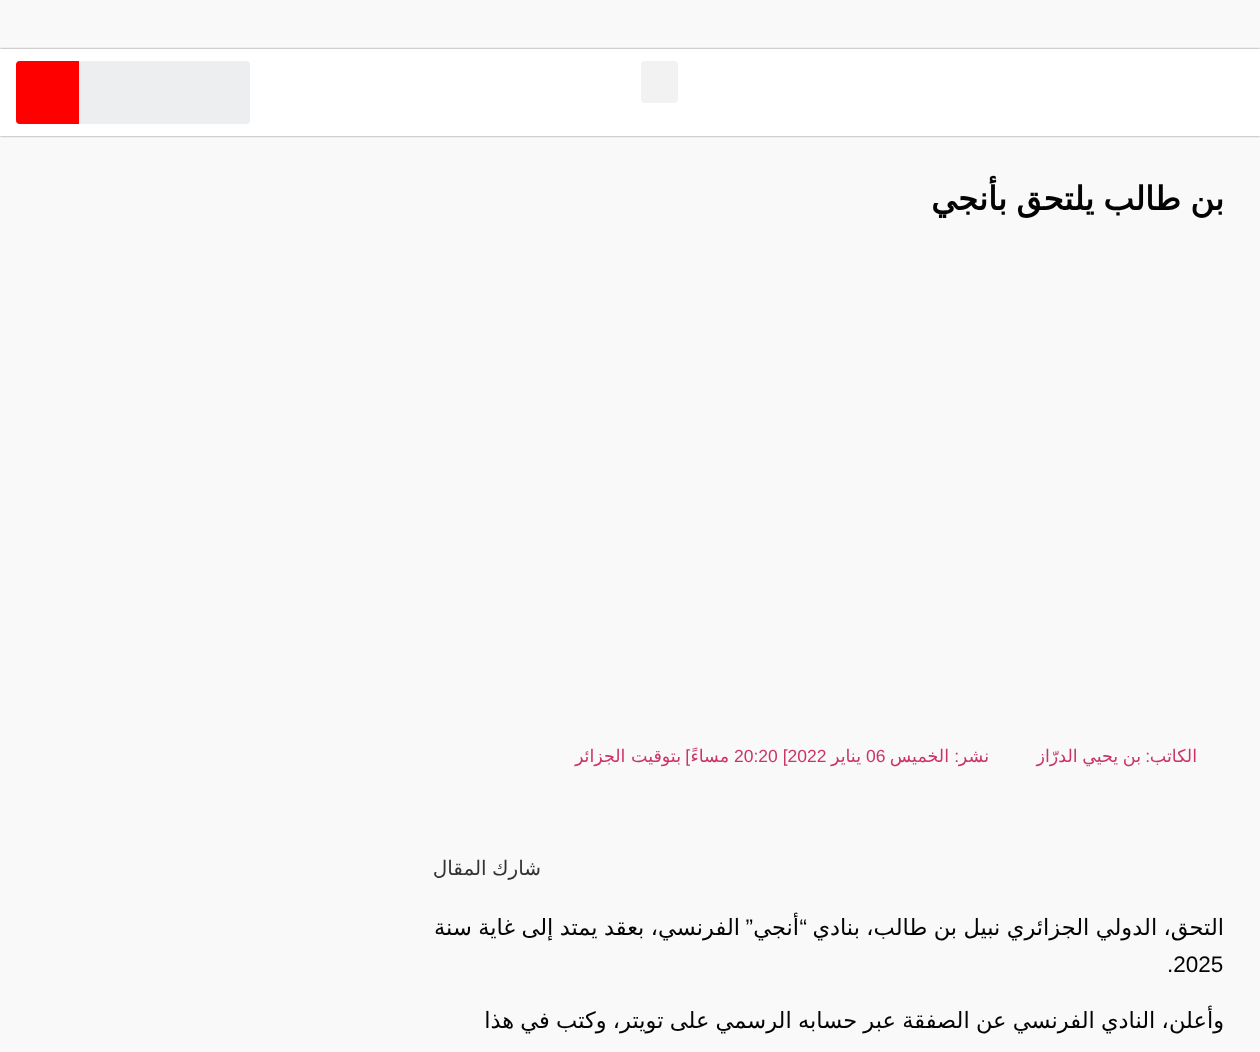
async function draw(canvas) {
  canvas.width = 1260;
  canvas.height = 1052;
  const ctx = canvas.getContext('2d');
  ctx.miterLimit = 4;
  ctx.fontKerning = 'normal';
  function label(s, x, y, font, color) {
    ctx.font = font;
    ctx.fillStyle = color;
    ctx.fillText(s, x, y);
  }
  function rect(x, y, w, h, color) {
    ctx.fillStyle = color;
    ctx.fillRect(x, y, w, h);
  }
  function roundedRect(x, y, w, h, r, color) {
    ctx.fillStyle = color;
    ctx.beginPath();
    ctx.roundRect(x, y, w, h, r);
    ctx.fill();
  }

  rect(0, 0, 1260, 1052, '#f9f9f9');
  ctx.fillStyle = '#00000080';
  ctx.filter = 'blur(1px)';
  ctx.beginPath();
  ctx.rect(0, 49, 1260, 87);
  ctx.fill();
  ctx.filter = 'none';
  rect(0, 49, 1260, 87, '#fff');
  roundedRect(641, 61, 37, 42, 4, '#f2f2f2');
  roundedRect(16, 61, 234, 63, 4, '#eceeef');
  ctx.fillStyle = '#f00';
  ctx.beginPath();
  ctx.roundRect(16, 61, 63, 63, [4, 0, 0, 4]);
  ctx.fill();
  ctx.wordSpacing = '-1px';
  ctx.direction = 'rtl';
  label('بن طالب يلتحق بأنجي', 1224, 210, 'bold 32.5px DejaVu Sans', '#030303');
  ctx.wordSpacing = '0px';
  label('الكاتب', 1197, 762, '17.5px DejaVu Sans', '#c36');
  label(':', 1150, 762, '17.5px Liberation Sans', '#c36');
  ctx.wordSpacing = '-1px';
  label('بن يحيي الدرّاز', 1141, 762, '17.5px DejaVu Sans', '#c36');
  ctx.wordSpacing = '0px';
  label('نشر', 989, 762, '17.5px DejaVu Sans', '#c36');
  label(':', 959, 762, '17.5px Liberation Sans', '#c36');
  label('الخميس', 949, 762, '17.5px DejaVu Sans', '#c36');
  ctx.direction = 'ltr';
  label('06', 866, 762, '17.5px Liberation Sans', '#c36');
  ctx.direction = 'rtl';
  label('يناير', 861, 762, '17.5px DejaVu Sans', '#c36');
  ctx.direction = 'ltr';
  label('20:20 [2022', 734, 762, '17.5px Liberation Sans', '#c36');
  ctx.direction = 'rtl';
  label('مساءً', 729, 762, '17.5px DejaVu Sans', '#c36');
  label(']', 690, 762, '17.5px Liberation Sans', '#c36');
  label('بتوقيت الجزائر', 681, 762, '17.5px DejaVu Sans', '#c36');
  ctx.wordSpacing = '-1px';
  label('شارك المقال', 541, 875, '20px DejaVu Sans', '#333');
  ctx.wordSpacing = '-0.75px';
  label('التحق، الدولي الجزائري نبيل بن طالب، بنادي', 1224, 935, '22.5px DejaVu Sans', '#030303');
  ctx.wordSpacing = '0px';
  label('“', 807, 935, '22.5px Liberation Sans', '#030303');
  label('أنجي', 799, 935, '22.5px DejaVu Sans', '#030303');
  label('”', 753, 935, '22.5px Liberation Sans', '#030303');
  ctx.wordSpacing = '-0.75px';
  label('الفرنسي، بعقد يمتد إلى غاية سنة', 740, 935, '22.5px DejaVu Sans', '#030303');
  ctx.wordSpacing = '0px';
  ctx.direction = 'ltr';
  label('.2025', 1167, 972, '22.5px Liberation Sans', '#030303');
  ctx.wordSpacing = '-0.9px';
  ctx.direction = 'rtl';
  label('وأعلن، النادي الفرنسي عن الصفقة عبر حسابه الرسمي على تويتر، وكتب في هذا', 1224, 1028, '22.5px DejaVu Sans', '#030303');
}

draw(document.querySelector('canvas'));
